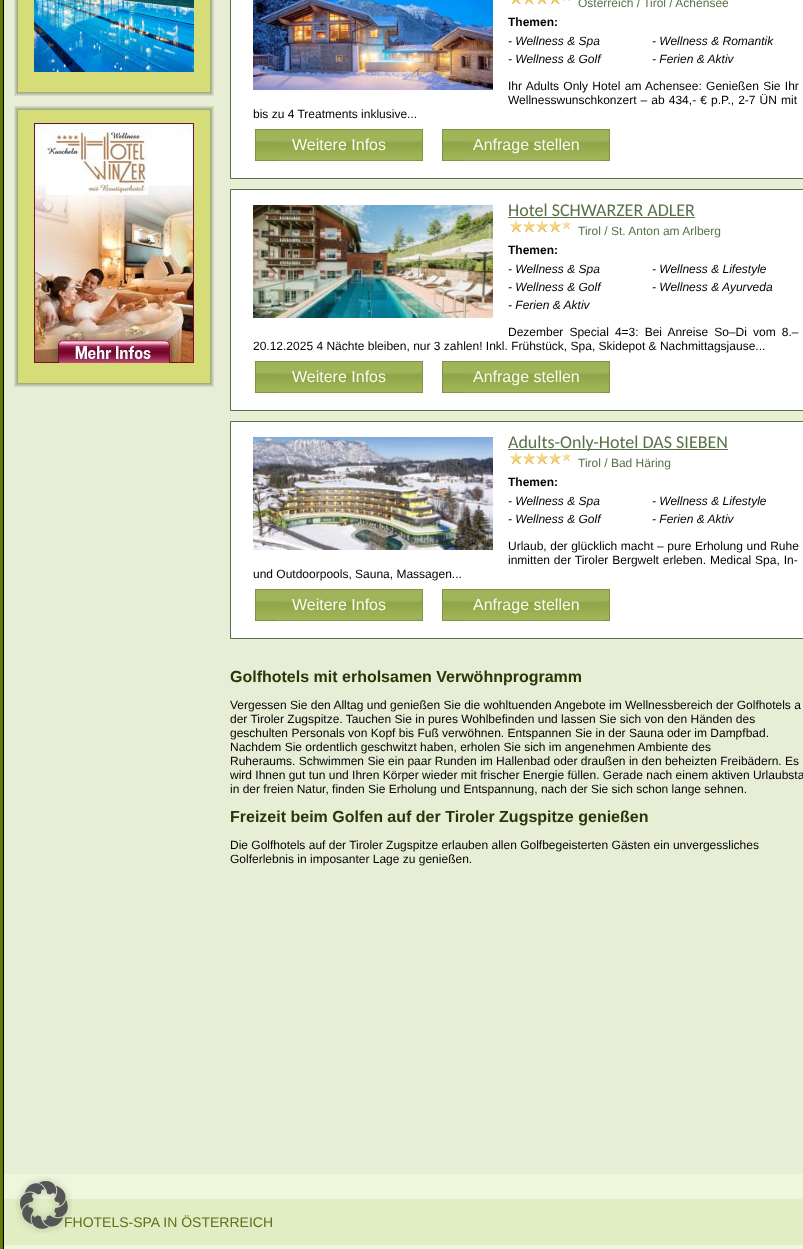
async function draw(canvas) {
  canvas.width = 803;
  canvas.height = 1249;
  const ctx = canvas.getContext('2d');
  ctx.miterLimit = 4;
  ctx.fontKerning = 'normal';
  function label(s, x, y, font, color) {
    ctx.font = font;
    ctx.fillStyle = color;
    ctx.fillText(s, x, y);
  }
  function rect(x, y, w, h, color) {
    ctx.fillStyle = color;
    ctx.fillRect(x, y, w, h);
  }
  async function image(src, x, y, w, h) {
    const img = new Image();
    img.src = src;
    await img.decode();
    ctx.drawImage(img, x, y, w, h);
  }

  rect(0, 0, 803, 1249, '#6a8600');
  rect(4, 1174, 799, 75, '#eef6dc');
  rect(4, 1199, 799, 46, '#e1edc2');
  label('FHOTELS-SPA IN ÖSTERREICH', 64, 1227, '14px Liberation Sans', '#616e1c');
  await image('assets/img1.png', 15, 1176, 57, 57);
  await image('assets/img2.png', 0, 0, 4, 1249);
  rect(4, 0, 799, 1174, '#e8eed5');
  await image('assets/img3.png', 14, 0, 13, 83);
  rect(27, 0, 174, 83, '#d6dc77');
  await image('assets/img4.png', 34, 0, 160, 72);
  await image('assets/img5.png', 201, 0, 13, 83);
  await image('assets/img6.png', 14, 83, 13, 13);
  await image('assets/img7.png', 27, 83, 174, 13);
  await image('assets/img8.png', 201, 83, 13, 13);
  await image('assets/img9.png', 14, 106, 13, 13);
  await image('assets/img10.png', 27, 106, 174, 13);
  await image('assets/img11.png', 201, 106, 13, 13);
  await image('assets/img12.png', 14, 119, 13, 255);
  rect(27, 119, 174, 255, '#d6dc77');
  await image('assets/img13.png', 201, 119, 13, 255);
  await image('assets/img14.png', 34, 123, 160, 240);
  await image('assets/img6.png', 14, 374, 13, 13);
  await image('assets/img7.png', 27, 374, 174, 13);
  await image('assets/img8.png', 201, 374, 13, 13);
  ctx.fillStyle = '#fff';
  ctx.beginPath();
  ctx.rect(230.5, -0.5, 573, 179);
  ctx.fill();
  ctx.strokeStyle = '#587248';
  ctx.stroke();
  await image('assets/img15.png', 253, 0, 240, 90);
  await image('assets/img16.png', 512, 0, 9, 4);
  await image('assets/img16.png', 525, 0, 9, 4);
  await image('assets/img16.png', 538, 0, 9, 4);
  await image('assets/img16.png', 551, 0, 9, 4);
  await image('assets/img17.png', 563, 0, 7, 1);
  label('Österreich / Tirol / Achensee', 578, 7, '12px Liberation Sans', '#587248');
  label('Themen:', 508, 26, 'bold 12px Liberation Sans', '#000');
  label('- Wellness & Spa', 508, 45, 'italic 12px Liberation Sans', '#000');
  label('- Wellness & Romantik', 652, 45, 'italic 12px Liberation Sans', '#000');
  label('- Wellness & Golf', 508, 63, 'italic 12px Liberation Sans', '#000');
  label('- Ferien & Aktiv', 652, 63, 'italic 12px Liberation Sans', '#000');
  ctx.wordSpacing = '1px';
  label('Ihr Adults Only Hotel am Achensee: Genießen Sie Ihr', 508, 90, '12px Liberation Sans', '#000');
  ctx.wordSpacing = '0.75px';
  label('Wellnesswunschkonzert – ab 434,- € p.P., 2-7 ÜN mit', 508, 104, '12px Liberation Sans', '#000');
  ctx.wordSpacing = '0px';
  label('bis zu 4 Treatments inklusive...', 253, 118, '12px Liberation Sans', '#000');
  await image('assets/img18.png', 255, 129, 161, 32);
  await image('assets/img19.png', 416, 129, 7, 32);
  label('Weitere Infos', 292, 150, '16px Liberation Sans', '#fafdee');
  await image('assets/img18.png', 442, 129, 161, 32);
  await image('assets/img19.png', 603, 129, 7, 32);
  label('Anfrage stellen', 473, 150, '16px Liberation Sans', '#fafdee');
  ctx.fillStyle = '#fff';
  ctx.beginPath();
  ctx.rect(230.5, 189.5, 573, 221);
  ctx.fill();
  ctx.stroke();
  label('Hotel SCHWARZER ADLER', 508, 216, '18px Carlito', '#587248');
  rect(508, 217, 187, 1, '#587248');
  await image('assets/img20.png', 510, 220, 12, 12);
  await image('assets/img20.png', 523, 220, 12, 12);
  await image('assets/img20.png', 536, 220, 12, 12);
  await image('assets/img20.png', 549, 220, 12, 12);
  await image('assets/img21.png', 562, 220, 9, 9);
  label('Tirol / St. Anton am Arlberg', 578, 235, '12px Liberation Sans', '#587248');
  label('Themen:', 508, 254, 'bold 12px Liberation Sans', '#000');
  label('- Wellness & Spa', 508, 273, 'italic 12px Liberation Sans', '#000');
  label('- Wellness & Lifestyle', 652, 273, 'italic 12px Liberation Sans', '#000');
  label('- Wellness & Golf', 508, 291, 'italic 12px Liberation Sans', '#000');
  label('- Wellness & Ayurveda', 652, 291, 'italic 12px Liberation Sans', '#000');
  label('- Ferien & Aktiv', 508, 309, 'italic 12px Liberation Sans', '#000');
  ctx.wordSpacing = '2.75px';
  label('Dezember Special 4=3: Bei Anreise So–Di vom 8.–', 508, 336, '12px Liberation Sans', '#000');
  ctx.wordSpacing = '0px';
  label('20.12.2025 4 Nächte bleiben, nur 3 zahlen! Inkl. Frühstück, Spa, Skidepot & Nachmittagsjause...', 253, 350, '12px Liberation Sans', '#000');
  await image('assets/img22.png', 253, 205, 240, 113);
  await image('assets/img18.png', 255, 361, 161, 32);
  await image('assets/img19.png', 416, 361, 7, 32);
  label('Weitere Infos', 292, 382, '16px Liberation Sans', '#fafdee');
  await image('assets/img18.png', 442, 361, 161, 32);
  await image('assets/img19.png', 603, 361, 7, 32);
  label('Anfrage stellen', 473, 382, '16px Liberation Sans', '#fafdee');
  ctx.fillStyle = '#fff';
  ctx.beginPath();
  ctx.rect(230.5, 421.5, 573, 217);
  ctx.fill();
  ctx.stroke();
  rect(508, 449, 220, 1, '#587248');
  label('Adults-Only-Hotel DAS SIEBEN', 508, 448, '18px Carlito', '#587248');
  await image('assets/img20.png', 510, 452, 12, 12);
  await image('assets/img20.png', 523, 452, 12, 12);
  await image('assets/img20.png', 536, 452, 12, 12);
  await image('assets/img20.png', 549, 452, 12, 12);
  await image('assets/img21.png', 562, 452, 9, 9);
  label('Tirol / Bad Häring', 578, 467, '12px Liberation Sans', '#587248');
  label('Themen:', 508, 486, 'bold 12px Liberation Sans', '#000');
  label('- Wellness & Spa', 508, 505, 'italic 12px Liberation Sans', '#000');
  label('- Wellness & Lifestyle', 652, 505, 'italic 12px Liberation Sans', '#000');
  label('- Wellness & Golf', 508, 523, 'italic 12px Liberation Sans', '#000');
  label('- Ferien & Aktiv', 652, 523, 'italic 12px Liberation Sans', '#000');
  ctx.wordSpacing = '0.25px';
  label('Urlaub, der glücklich macht – pure Erholung und Ruhe', 508, 550, '12px Liberation Sans', '#000');
  ctx.wordSpacing = '0.5px';
  label('inmitten der Tiroler Bergwelt erleben. Medical Spa, In-', 508, 564, '12px Liberation Sans', '#000');
  ctx.wordSpacing = '0px';
  label('und Outdoorpools, Sauna, Massagen...', 253, 578, '12px Liberation Sans', '#000');
  await image('assets/img23.png', 253, 437, 240, 113);
  await image('assets/img18.png', 255, 589, 161, 32);
  await image('assets/img19.png', 416, 589, 7, 32);
  label('Weitere Infos', 292, 610, '16px Liberation Sans', '#fafdee');
  await image('assets/img18.png', 442, 589, 161, 32);
  await image('assets/img19.png', 603, 589, 7, 32);
  label('Anfrage stellen', 473, 610, '16px Liberation Sans', '#fafdee');
  label('Golfhotels mit erholsamen Verwöhnprogramm', 230, 682, 'bold 16px Liberation Sans', '#293607');
  label('Vergessen Sie den Alltag und genießen Sie die wohltuenden Angebote im Wellnessbereich der Golfhotels a', 230, 709, '12px Liberation Sans', '#000');
  label('der Tiroler Zugspitze. Tauchen Sie in pures Wohlbefinden und lassen Sie sich von den Händen des', 230, 723, '12px Liberation Sans', '#000');
  label('geschulten Personals von Kopf bis Fuß verwöhnen. Entspannen Sie in der Sauna oder im Dampfbad.', 230, 737, '12px Liberation Sans', '#000');
  label('Nachdem Sie ordentlich geschwitzt haben, erholen Sie sich im angenehmen Ambiente des', 230, 751, '12px Liberation Sans', '#000');
  label('Ruheraums. Schwimmen Sie ein paar Runden im Hallenbad oder draußen in den beheizten Freibädern. Es', 230, 765, '12px Liberation Sans', '#000');
  label('wird Ihnen gut tun und Ihren Körper wieder mit frischer Energie füllen. Gerade nach einem aktiven Urlaubsta', 230, 779, '12px Liberation Sans', '#000');
  label('in der freien Natur, finden Sie Erholung und Entspannung, nach der Sie sich schon lange sehnen.', 230, 793, '12px Liberation Sans', '#000');
  label('Freizeit beim Golfen auf der Tiroler Zugspitze genießen', 230, 822, 'bold 16px Liberation Sans', '#293607');
  label('Die Golfhotels auf der Tiroler Zugspitze erlauben allen Golfbegeisterten Gästen ein unvergessliches', 230, 849, '12px Liberation Sans', '#000');
  label('Golferlebnis in imposanter Lage zu genießen.', 230, 863, '12px Liberation Sans', '#000');
}

draw(document.querySelector('canvas'));
